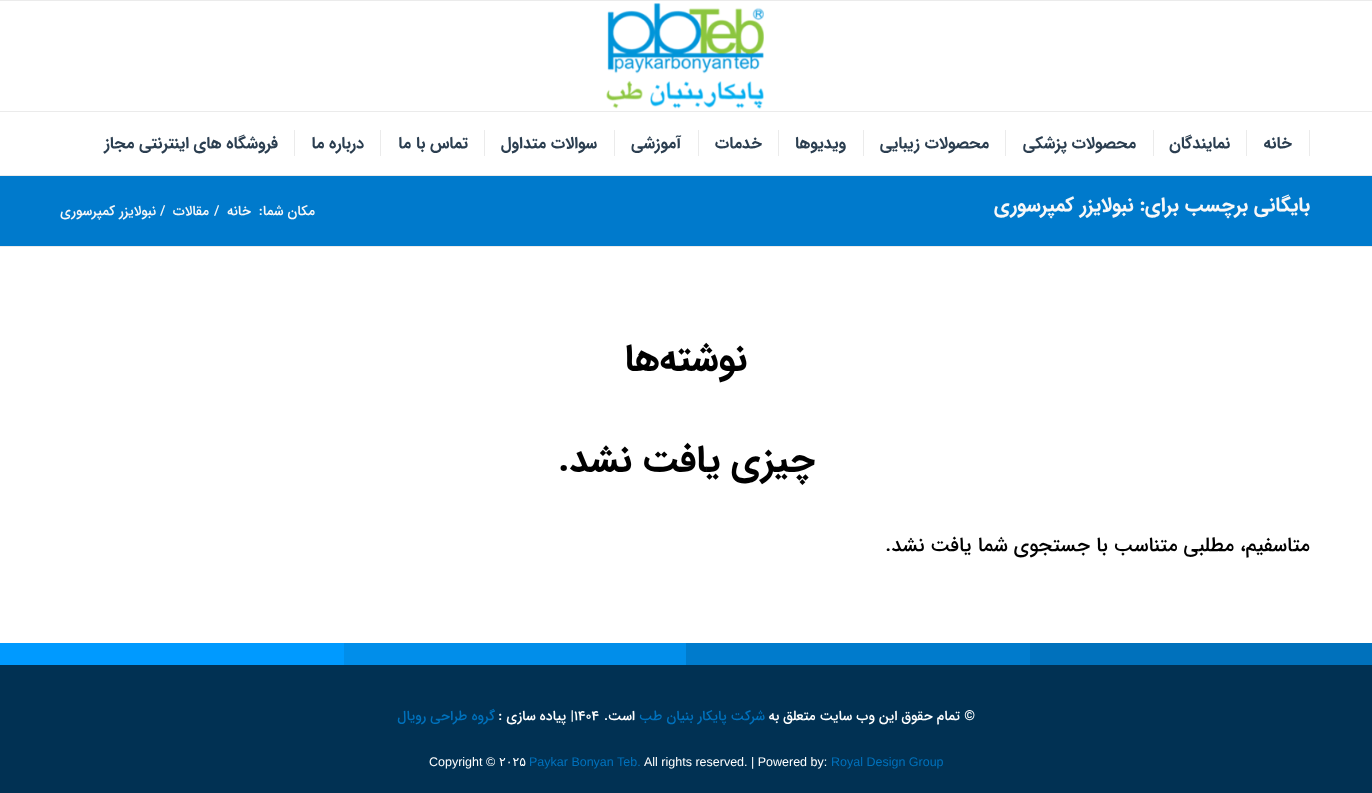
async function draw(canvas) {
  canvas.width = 1372;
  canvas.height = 793;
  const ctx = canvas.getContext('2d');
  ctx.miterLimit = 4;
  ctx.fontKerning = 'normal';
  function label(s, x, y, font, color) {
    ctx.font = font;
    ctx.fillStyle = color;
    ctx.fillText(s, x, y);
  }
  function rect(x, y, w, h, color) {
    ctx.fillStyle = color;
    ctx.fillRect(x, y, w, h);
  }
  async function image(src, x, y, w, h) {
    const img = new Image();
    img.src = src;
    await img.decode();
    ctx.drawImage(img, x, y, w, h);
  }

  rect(0, 0, 1372, 793, '#fff');
  rect(0, 0, 1372, 1, '#ebebeb');
  rect(0, 175, 1372, 1, '#ebebeb');
  await image('assets/img1.png', 606, 3, 158, 106);
  rect(0, 111, 1372, 1, '#ebebeb');
  ctx.direction = 'rtl';
  label('خانه', 1292, 148, 'bold 16.25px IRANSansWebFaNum', '#2b3e50');
  rect(1309, 130, 1, 26, '#ebebeb');
  label('نمایندگان', 1230, 148, 'bold 16.25px IRANSansWebFaNum', '#2b3e50');
  rect(1246, 130, 1, 26, '#ebebeb');
  label('محصولات پزشکی', 1136, 148, 'bold 16.25px IRANSansWebFaNum', '#2b3e50');
  rect(1153, 130, 1, 26, '#ebebeb');
  label('محصولات زیبایی', 989, 148, 'bold 16.25px IRANSansWebFaNum', '#2b3e50');
  rect(1005, 130, 1, 26, '#ebebeb');
  label('ویدیوها', 846, 148, 'bold 16.25px IRANSansWebFaNum', '#2b3e50');
  rect(863, 130, 1, 26, '#ebebeb');
  label('خدمات', 762, 148, 'bold 16.25px IRANSansWebFaNum', '#2b3e50');
  rect(778, 130, 1, 26, '#ebebeb');
  label('آموزشی', 681, 148, 'bold 16.25px IRANSansWebFaNum', '#2b3e50');
  rect(698, 130, 1, 26, '#ebebeb');
  label('سوالات متداول', 597, 148, 'bold 16.25px IRANSansWebFaNum', '#2b3e50');
  rect(614, 130, 1, 26, '#ebebeb');
  label('تماس با ما', 468, 148, 'bold 16.25px IRANSansWebFaNum', '#2b3e50');
  rect(484, 130, 1, 26, '#ebebeb');
  label('درباره ما', 364, 148, 'bold 16.25px IRANSansWebFaNum', '#2b3e50');
  rect(380, 130, 1, 26, '#ebebeb');
  label('فروشگاه های اینترنتی مجاز', 278, 148, 'bold 16.25px IRANSansWebFaNum', '#2b3e50');
  rect(294, 130, 1, 26, '#ebebeb');
  rect(0, 176, 1372, 70, '#007acc');
  label('بایگانی برچسب برای: نبولایزر کمپرسوری', 1310, 211, 'bold 20px IRANSansWebFaNum', '#f8f8f8');
  label('مکان شما:', 315, 215, '500 13.75px IRANSansWebFaNum', '#f8f8f8');
  label('خانه', 251, 215, '500 13.75px IRANSansWebFaNum', '#f8f8f8');
  ctx.direction = 'ltr';
  label('/', 214, 215, '500 13.75px IRANSansWebFaNum', '#f8f8f8');
  ctx.direction = 'rtl';
  label('مقالات', 209, 215, '500 13.75px IRANSansWebFaNum', '#f8f8f8');
  ctx.direction = 'ltr';
  label('/', 160, 215, '500 13.75px IRANSansWebFaNum', '#f8f8f8');
  ctx.direction = 'rtl';
  label('نبولایزر کمپرسوری', 156, 215, '500 13.75px IRANSansWebFaNum', '#f8f8f8');
  rect(0, 246, 1372, 1, '#ebebeb');
  label('نوشته‌ها', 747, 370, 'bold 37.5px IRANSansWebFaNum', '#000');
  label('چیزی یافت نشد.', 815, 471, 'bold 37.5px IRANSansWebFaNum', '#000');
  label('متاسفیم، مطلبی متناسب با جستجوی شما یافت نشد.', 1310, 551, '500 20px IRANSansWebFaNum', '#000');
  rect(1030, 643, 342, 22, '#0071bc');
  rect(686, 643, 344, 22, '#007bcc');
  rect(344, 643, 342, 22, '#018eea');
  rect(0, 643, 344, 22, '#009aff');
  rect(0, 665, 1372, 128, '#013153');
  label('© تمام حقوق این وب سایت متعلق به', 975, 720, '500 13.75px IRANSansWebFaNum', '#fff');
  label('شرکت پایکار بنیان طب', 765, 720, '500 13.75px IRANSansWebFaNum', '#0071bc');
  label('است.', 635, 720, '500 13.75px IRANSansWebFaNum', '#fff');
  ctx.direction = 'ltr';
  label('۱۴۰۴', 574, 720, '500 13.75px IRANSansWebFaNum', '#fff');
  ctx.direction = 'rtl';
  label('| پیاده سازی :', 574, 720, '500 13.75px IRANSansWebFaNum', '#fff');
  label('گروه طراحی رویال', 495, 720, '500 13.75px IRANSansWebFaNum', '#0071bc');
  ctx.direction = 'ltr';
  label('Royal Design Group', 831, 766, '12.5px Liberation Sans', '#0071bc');
  label('All rights reserved. | Powered by:', 644, 766, '12.5px Liberation Sans', '#fff');
  label('Paykar Bonyan Teb.', 529, 766, '12.5px Liberation Sans', '#0071bc');
  label('۲۰۲۵', 499, 766, '12.5px DejaVu Sans', '#fff');
  label('Copyright ©', 429, 766, '12.5px Liberation Sans', '#fff');
}

draw(document.querySelector('canvas'));
